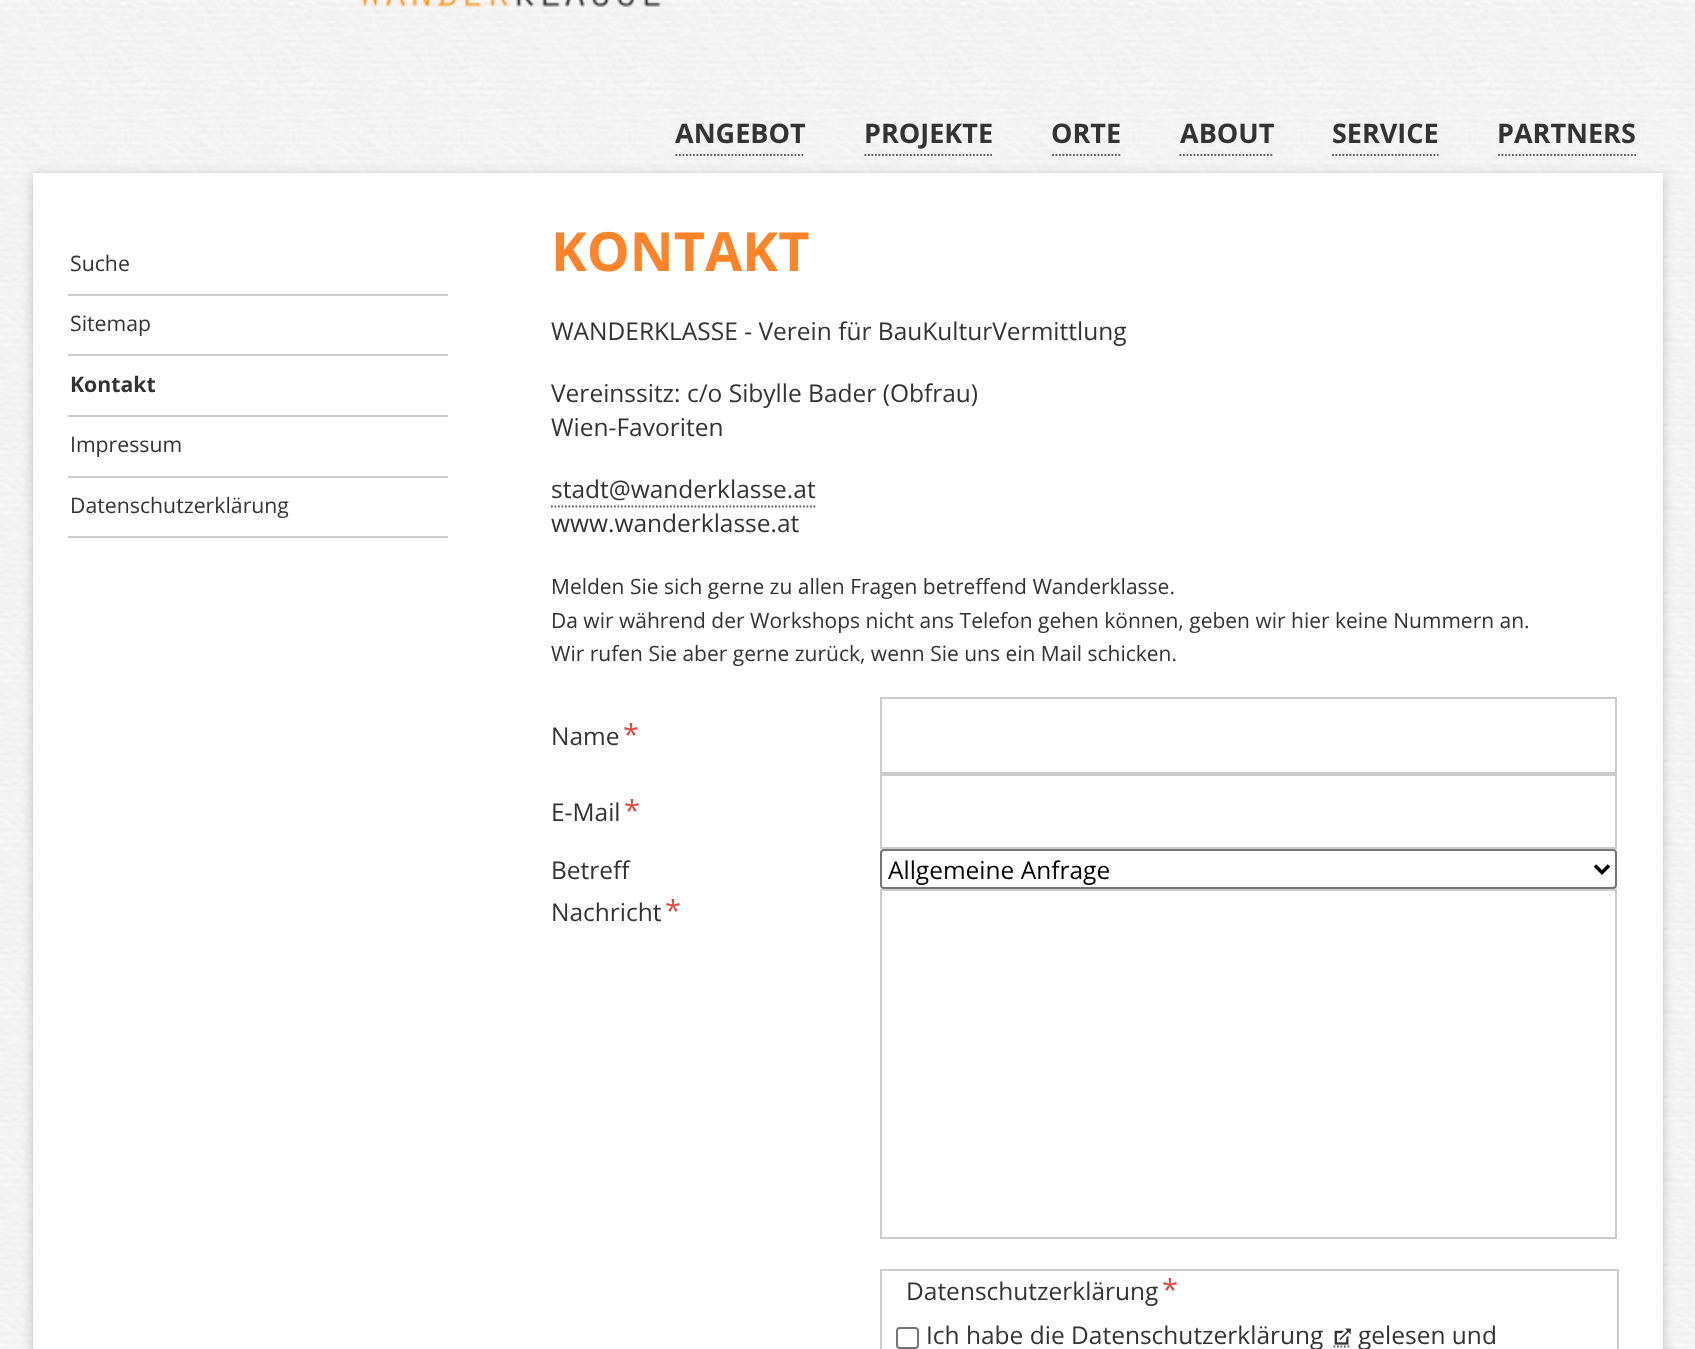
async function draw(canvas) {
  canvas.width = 1695;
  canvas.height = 1349;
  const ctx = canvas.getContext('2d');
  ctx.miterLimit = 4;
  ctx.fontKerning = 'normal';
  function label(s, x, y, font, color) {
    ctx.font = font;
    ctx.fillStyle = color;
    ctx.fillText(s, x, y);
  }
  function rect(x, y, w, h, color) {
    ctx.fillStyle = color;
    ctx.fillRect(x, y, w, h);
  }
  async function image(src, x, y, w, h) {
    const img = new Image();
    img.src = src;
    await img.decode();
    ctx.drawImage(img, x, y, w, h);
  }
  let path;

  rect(0, 0, 1695, 1349, '#fff');
  await image('assets/img1.png', 0, 0, 1695, 1349);
  await image('assets/img2.png', 361, 0, 300, 7);
  path = new Path2D('M675.5 155H805');
  ctx.strokeStyle = '#5b5b5b';
  ctx.lineWidth = 1.8;
  ctx.setLineDash([1.75, 1.75]);
  ctx.stroke(path);
  label('ANGEBOT', 675, 143, 'bold 27px Open Sans', '#333');
  path = new Path2D('M864.5 155H992');
  ctx.stroke(path);
  label('PROJEKTE', 864, 143, 'bold 27px Open Sans', '#333');
  path = new Path2D('M1052 155H1122');
  ctx.stroke(path);
  label('ORTE', 1051, 143, 'bold 27px Open Sans', '#333');
  path = new Path2D('M1179.5 155H1274');
  ctx.stroke(path);
  label('ABOUT', 1180, 143, 'bold 27px Open Sans', '#333');
  path = new Path2D('M1332 155H1438.5');
  ctx.stroke(path);
  label('SERVICE', 1332, 143, 'bold 27px Open Sans', '#333');
  path = new Path2D('M1498 155H1636');
  ctx.stroke(path);
  label('PARTNERS', 1497, 143, 'bold 27px Open Sans', '#333');
  ctx.fillStyle = '#00000033';
  ctx.filter = 'blur(6px)';
  ctx.beginPath();
  ctx.rect(33, 175, 1630, 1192);
  ctx.fill();
  ctx.filter = 'none';
  rect(33, 173, 1630, 1176, '#fff');
  rect(68, 294, 380, 2, '#cccccd');
  label('Suche', 70, 271, '21.25px Open Sans', '#333');
  rect(68, 354, 380, 2, '#cccccd');
  label('Sitemap', 70, 331, '21.25px Open Sans', '#333');
  rect(68, 415, 380, 2, '#cccccd');
  label('Kontakt', 70, 392, 'bold 21.25px Open Sans', '#333');
  rect(68, 476, 380, 2, '#cccccd');
  label('Impressum', 70, 452, '21.25px Open Sans', '#333');
  rect(68, 536, 380, 2, '#cccccd');
  label('Datenschutzerklärung', 70, 513, '21.25px Open Sans', '#333');
  label('KONTAKT', 551, 271, 'bold 54px Open Sans', '#ff8429');
  label('WANDERKLASSE - Verein für BauKulturVermittlung', 551, 340, '24.5px Open Sans', '#333');
  label('Vereinssitz: c/o Sibylle Bader (Obfrau)', 551, 402, '24.5px Open Sans', '#333');
  label('Wien-Favoriten', 551, 436, '24.5px Open Sans', '#333');
  label('stadt@wanderklasse.at', 551, 498, '24.5px Open Sans', '#333');
  path = new Path2D('M551 506.5H815.5');
  ctx.stroke(path);
  label('www.wanderklasse.at', 551, 532, '24.5px Open Sans', '#333');
  label('Melden Sie sich gerne zu allen Fragen betreffend Wanderklasse.', 551, 594, '21px Open Sans', '#333');
  label('Da wir während der Workshops nicht ans Telefon gehen können, geben wir hier keine Nummern an.', 551, 628, '21px Open Sans', '#333');
  label('Wir rufen Sie aber gerne zurück, wenn Sie uns ein Mail schicken.', 551, 661, '21px Open Sans', '#333');
  label('Name', 551, 745, '24.5px Open Sans', '#333');
  label('*', 623, 745, '29px Open Sans', '#e44545');
  ctx.strokeStyle = '#cccccd';
  ctx.lineWidth = 2;
  ctx.setLineDash([]);
  ctx.strokeRect(881, 698, 735, 75);
  label('E-Mail', 551, 821, '24.5px Open Sans', '#333');
  label('*', 624, 821, '29px Open Sans', '#e44545');
  ctx.strokeRect(881, 775, 735, 73);
  label('Betreff', 551, 879, '24.5px Open Sans', '#333');
  ctx.beginPath();
  ctx.roundRect(881, 850, 735, 38, 3);
  ctx.strokeStyle = '#767676';
  ctx.stroke();
  path = new Path2D('M1595 865.5L1602 872.5L1609 865.5');
  ctx.strokeStyle = '#000';
  ctx.lineWidth = 3.5;
  ctx.stroke(path);
  label('Allgemeine Anfrage', 888, 879, '24.5px Open Sans', '#000');
  label('Nachricht', 551, 921, '24.5px Open Sans', '#333');
  label('*', 665, 921, '29px Open Sans', '#e44545');
  ctx.strokeStyle = '#cccccd';
  ctx.lineWidth = 2;
  ctx.strokeRect(881, 890, 735, 348);
  ctx.strokeRect(881, 1270, 737, 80);
  label('Datenschutzerklärung', 906, 1300, '24.5px Open Sans', '#333');
  label('*', 1162, 1300, '29px Open Sans', '#e44545');
  ctx.beginPath();
  ctx.roundRect(897, 1328, 21, 20, 3);
  ctx.strokeStyle = '#767676';
  ctx.stroke();
  label('Ich habe die Datenschutzerklärung', 926, 1344, '24.5px Open Sans', '#333');
  path = new Path2D('M1333.5 1346.5H1351');
  ctx.strokeStyle = '#5b5b5b';
  ctx.lineWidth = 1.8;
  ctx.setLineDash([1.75, 1.75]);
  ctx.stroke(path);
  await image('assets/img3.png', 1334, 1328, 17, 17);
  label('gelesen und', 1358, 1344, '24.5px Open Sans', '#333');
}

draw(document.querySelector('canvas'));
